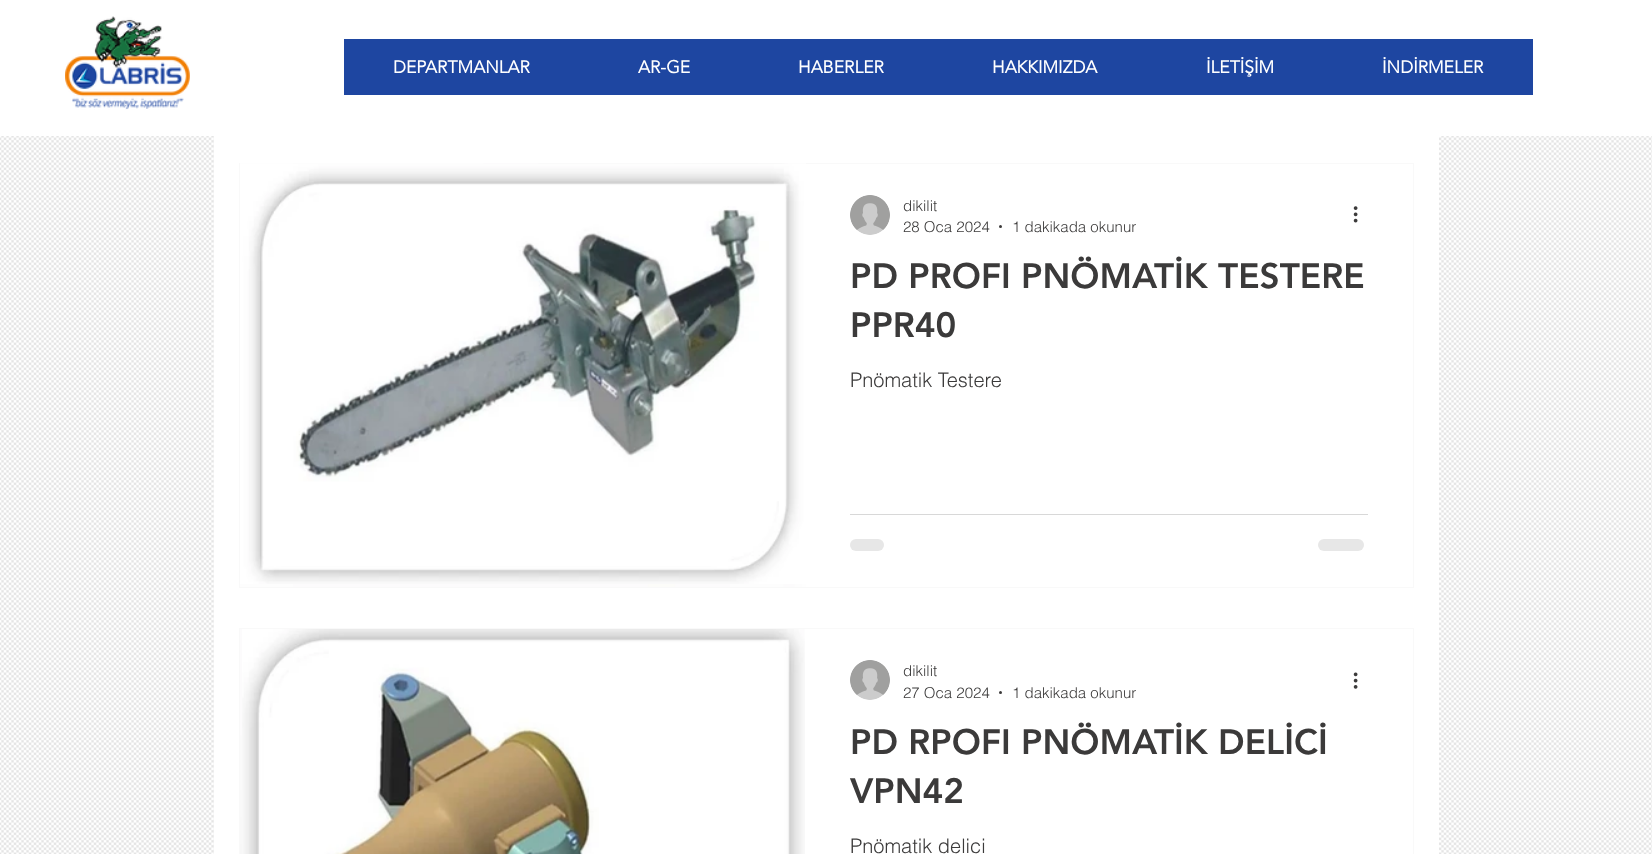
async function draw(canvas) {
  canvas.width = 1652;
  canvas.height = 854;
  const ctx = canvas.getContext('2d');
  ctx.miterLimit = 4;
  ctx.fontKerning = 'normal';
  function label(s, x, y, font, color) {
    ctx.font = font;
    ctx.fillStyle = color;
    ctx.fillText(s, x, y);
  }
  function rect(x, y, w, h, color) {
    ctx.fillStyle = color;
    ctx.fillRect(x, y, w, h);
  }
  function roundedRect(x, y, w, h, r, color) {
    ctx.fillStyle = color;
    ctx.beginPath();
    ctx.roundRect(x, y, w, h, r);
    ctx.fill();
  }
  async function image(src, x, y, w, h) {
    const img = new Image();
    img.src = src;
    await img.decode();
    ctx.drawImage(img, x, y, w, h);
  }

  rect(0, 0, 1652, 854, '#fff');
  await image('assets/img1.png', 65, 16, 125, 94);
  rect(344, 39, 1189, 56, '#1e46a1');
  label('DEPARTMANLAR', 393, 73, 'bold 17.5px "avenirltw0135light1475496"', '#fff');
  label('AR-GE', 638, 73, 'bold 17.5px "avenirltw0135light1475496"', '#fff');
  label('HABERLER', 798, 73, 'bold 17.5px "avenirltw0135light1475496"', '#fff');
  label('HAKKIMIZDA', 992, 73, 'bold 17.5px "avenirltw0135light1475496"', '#fff');
  label('İLETİŞİM', 1206, 73, 'bold 17.5px "avenirltw0135light1475496"', '#fff');
  label('İNDİRMELER', 1382, 73, 'bold 17.5px "avenirltw0135light1475496"', '#fff');
  await image('assets/img9.png', 0, 136, 1652, 718);
  rect(214, 136, 1225, 718, '#fff');
  ctx.strokeStyle = '#f9f9f9';
  ctx.strokeRect(239.5, 163.5, 1174, 424);
  await image('assets/img2.png', 240, 163, 566, 424);
  await image('assets/img3.png', 240, 164, 566, 420);
  await image('assets/img4.png', 850, 195, 40, 40);
  label('dikilit', 903, 211, '300 15px helvetica', '#3b3a3a');
  label('28 Oca 2024', 903, 232, '300 15px helvetica', '#3b3a3a');
  ctx.beginPath();
  ctx.arc(1000.5, 226.5, 1.5, 0, 2 * Math.PI);
  ctx.fill();
  label('1 dakikada okunur', 1012, 232, '300 15px helvetica', '#3b3a3a');
  await image('assets/img5.png', 1353, 206, 5, 17);
  label('PD PROFI PNÖMATİK TESTERE', 850, 288, '900 35px "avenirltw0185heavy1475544"', '#3b3a3a');
  label('PPR40', 850, 337, '900 35px "avenirltw0185heavy1475544"', '#3b3a3a');
  label('Pnömatik Testere', 850, 387, '300 20px helvetica', '#3b3a3a');
  rect(850, 514, 518, 1, '#d8d8d8');
  roundedRect(850, 539, 34, 12, 6, '#e7e7e7');
  roundedRect(1318, 539, 46, 12, 6, '#e7e7e7');
  ctx.strokeRect(239.5, 628.5, 1174, 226);
  await image('assets/img6.png', 240, 629, 2, 225);
  await image('assets/img7.png', 242, 629, 563, 225);
  await image('assets/img4.png', 850, 660, 40, 40);
  label('dikilit', 903, 676, '300 15px helvetica', '#3b3a3a');
  label('27 Oca 2024', 903, 698, '300 15px helvetica', '#3b3a3a');
  ctx.beginPath();
  ctx.arc(1000.5, 692.5, 1.5, 0, 2 * Math.PI);
  ctx.fill();
  label('1 dakikada okunur', 1012, 698, '300 15px helvetica', '#3b3a3a');
  await image('assets/img8.png', 1353, 672, 5, 17);
  label('PD RPOFI PNÖMATİK DELİCİ', 850, 754, '900 35px "avenirltw0185heavy1475544"', '#3b3a3a');
  label('VPN42', 850, 803, '900 35px "avenirltw0185heavy1475544"', '#3b3a3a');
  label('Pnömatik delici', 850, 853, '300 20px helvetica', '#3b3a3a');
}

draw(document.querySelector('canvas'));
